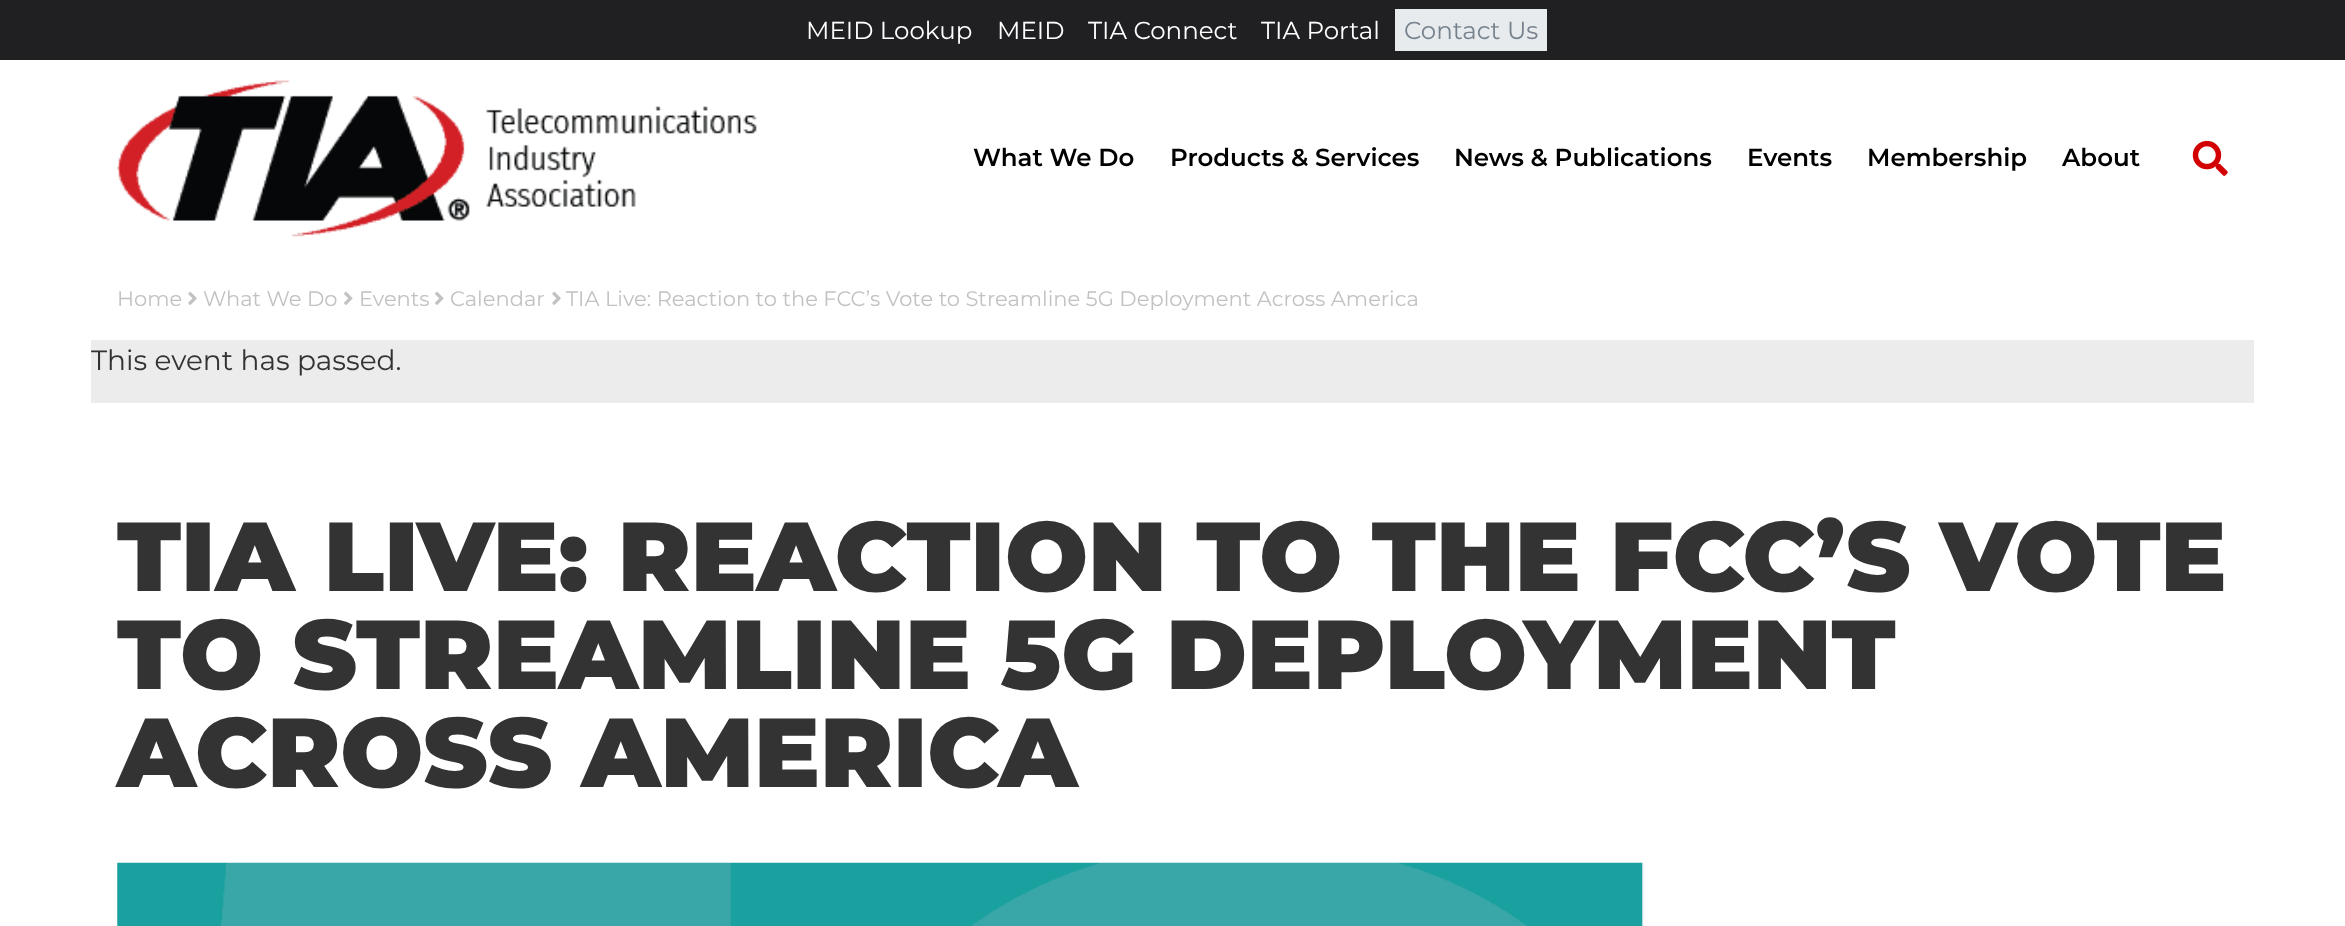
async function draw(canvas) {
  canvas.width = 2345;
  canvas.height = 926;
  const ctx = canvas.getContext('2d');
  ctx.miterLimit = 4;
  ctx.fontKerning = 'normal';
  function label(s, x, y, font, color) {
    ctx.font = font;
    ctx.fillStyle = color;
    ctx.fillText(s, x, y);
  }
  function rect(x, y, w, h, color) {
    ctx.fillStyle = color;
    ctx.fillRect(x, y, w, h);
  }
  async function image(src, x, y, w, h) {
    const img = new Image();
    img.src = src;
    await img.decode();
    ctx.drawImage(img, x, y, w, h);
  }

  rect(0, 0, 2345, 926, '#fff');
  rect(0, 0, 2345, 60, '#201f21');
  label('MEID Lookup', 806, 39, '24.5px Montserrat', '#fff');
  label('MEID', 997, 39, '24.5px Montserrat', '#fff');
  label('TIA Connect', 1088, 39, '24.5px Montserrat', '#fff');
  label('TIA Portal', 1261, 39, '24.5px Montserrat', '#fff');
  rect(1395, 9, 152, 42, '#e8ebed');
  label('Contact Us', 1404, 39, '24.5px Montserrat', '#76828d');
  await image('assets/img1.png', 117, 80, 640, 157);
  label('What We Do', 973, 166, '600 24.5px Montserrat', '#000');
  label('Products & Services', 1170, 166, '600 24.5px Montserrat', '#000');
  label('News & Publications', 1454, 166, '600 24.5px Montserrat', '#000');
  label('Events', 1747, 166, '600 24.5px Montserrat', '#000');
  label('Membership', 1867, 166, '600 24.5px Montserrat', '#000');
  label('About', 2062, 166, '600 24.5px Montserrat', '#000');
  await image('assets/img2.png', 2192, 140, 36, 36);
  label('Home', 117, 306, '21px Montserrat', '#c2c2c2');
  await image('assets/img3.png', 188, 291, 9, 14);
  label('What We Do', 203, 306, '21px Montserrat', '#c2c2c2');
  await image('assets/img4.png', 344, 291, 9, 14);
  label('Events', 359, 306, '21px Montserrat', '#c2c2c2');
  await image('assets/img4.png', 435, 291, 9, 14);
  label('Calendar', 450, 306, '21px Montserrat', '#c2c2c2');
  await image('assets/img3.png', 552, 291, 9, 14);
  label('TIA Live: Reaction to the FCC’s Vote to Streamline 5G Deployment Across America', 566, 306, '21px Montserrat', '#c2c2c2');
  rect(91, 340, 2163, 63, '#ececec');
  label('This event has passed.', 91, 370, '28px Montserrat', '#333');
  label('TIA LIVE: REACTION TO THE FCC’S VOTE', 117, 591, '900 98px Montserrat', '#333');
  label('TO STREAMLINE 5G DEPLOYMENT', 117, 689, '900 98px Montserrat', '#333');
  label('ACROSS AMERICA', 117, 787, '900 98px Montserrat', '#333');
  await image('assets/img5.png', 117, 862, 1527, 64);
}

draw(document.querySelector('canvas'));
